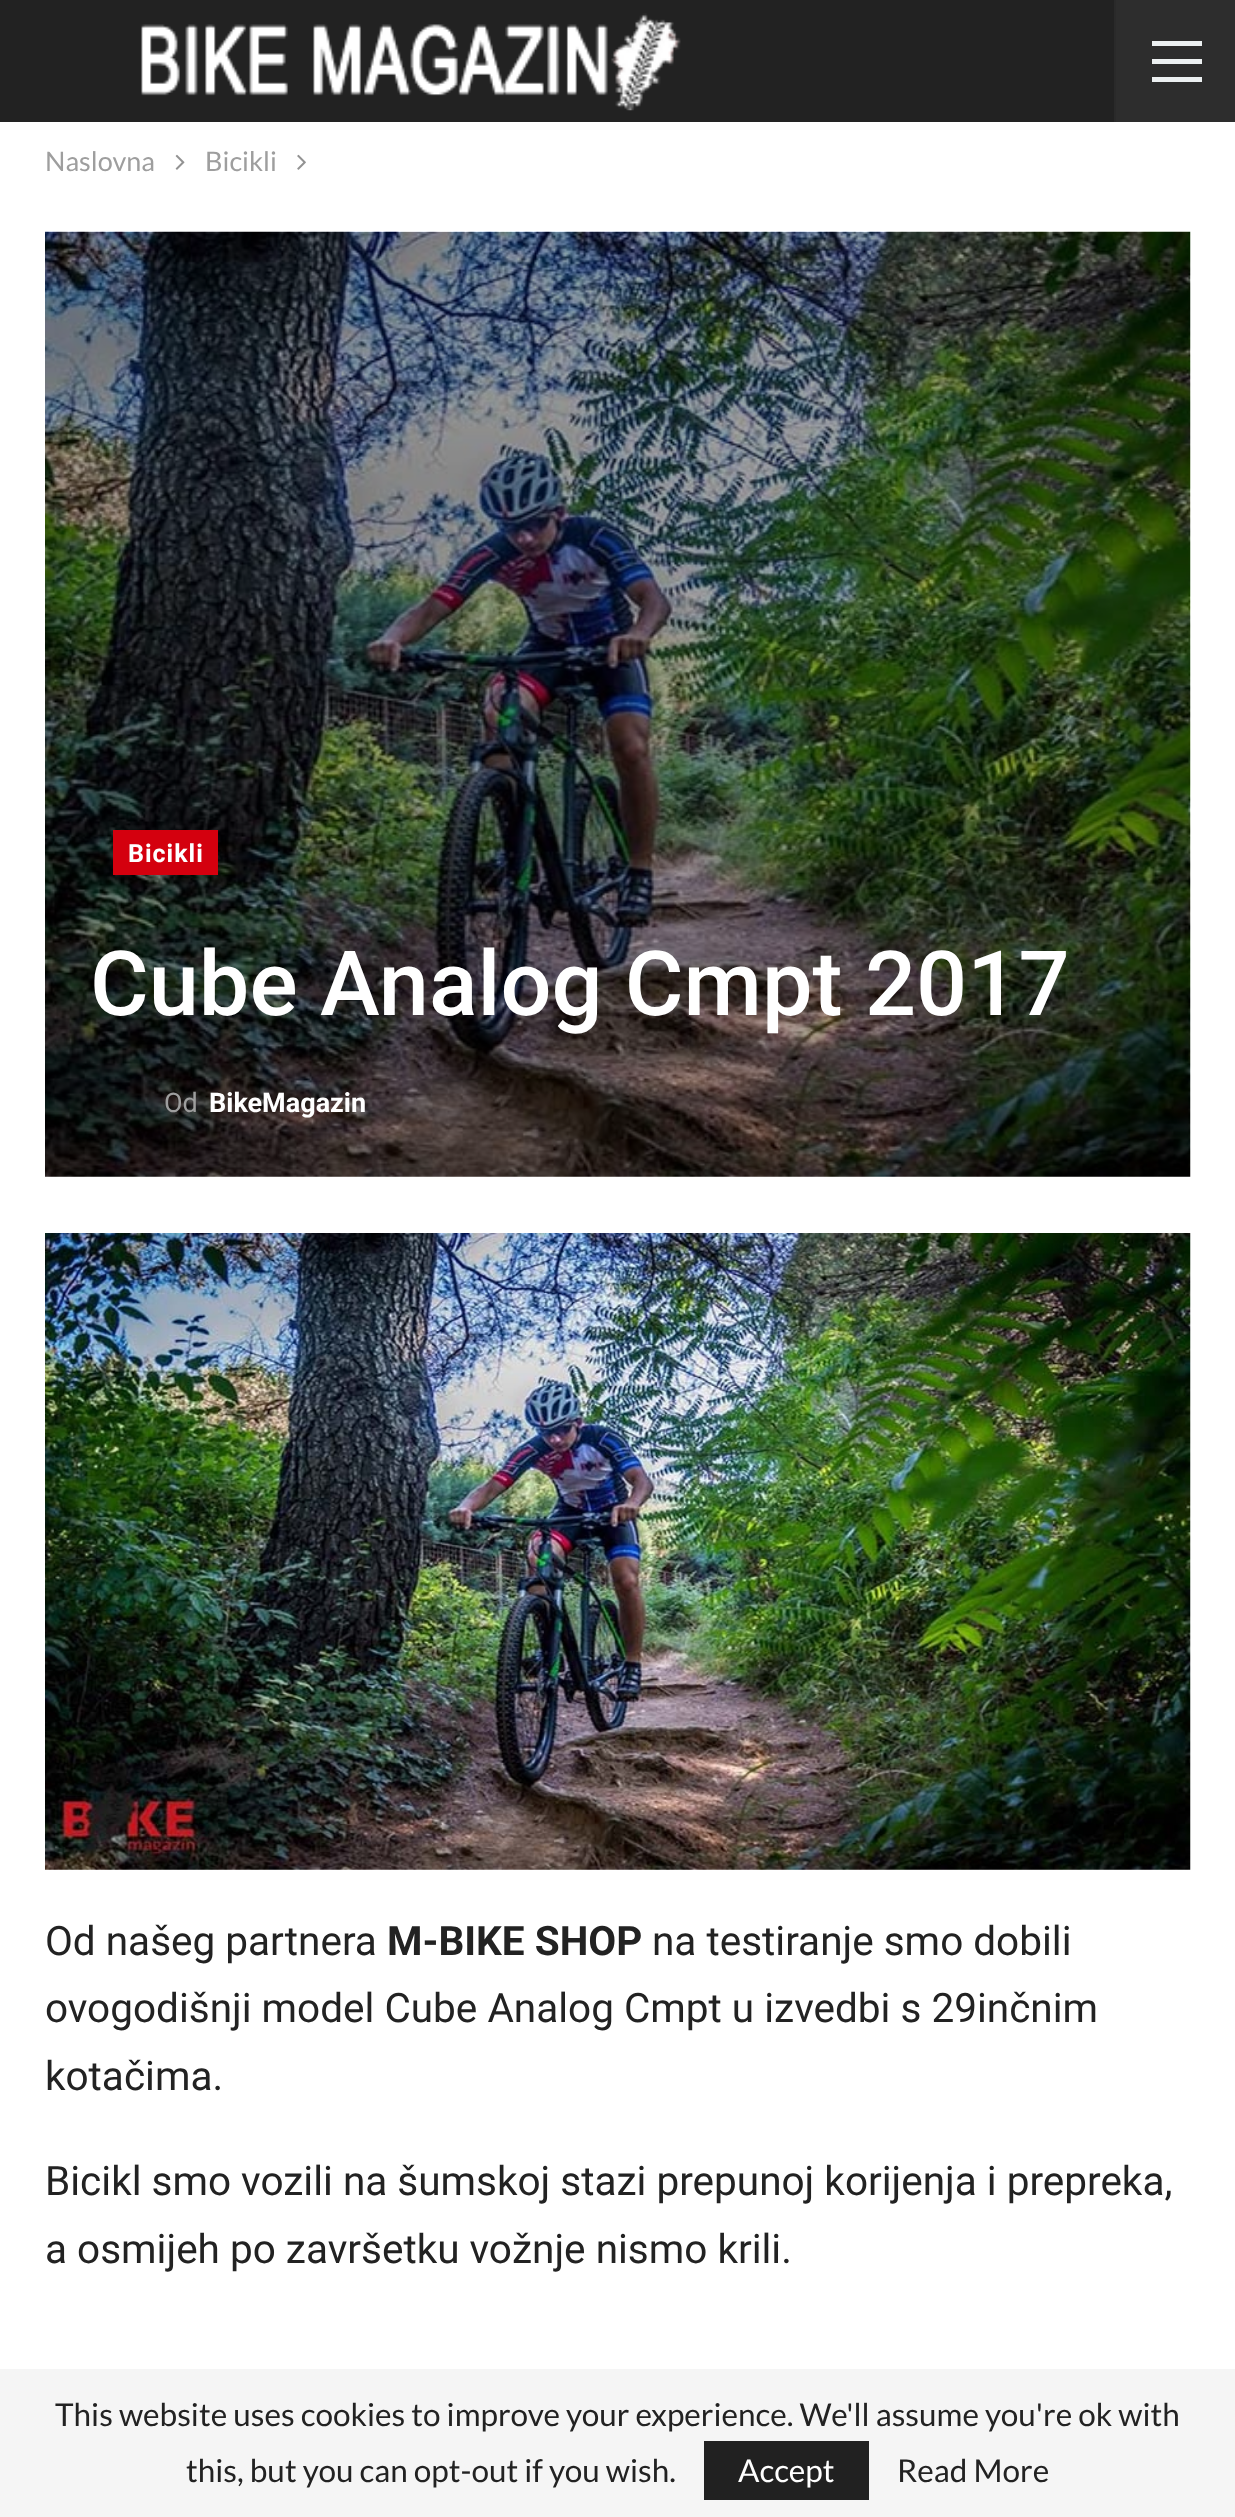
async function draw(canvas) {
  canvas.width = 1235;
  canvas.height = 2517;
  const ctx = canvas.getContext('2d');
  ctx.miterLimit = 4;
  ctx.fontKerning = 'normal';
  function label(s, x, y, font, color) {
    ctx.font = font;
    ctx.fillStyle = color;
    ctx.fillText(s, x, y);
  }
  function rect(x, y, w, h, color) {
    ctx.fillStyle = color;
    ctx.fillRect(x, y, w, h);
  }
  async function image(src, x, y, w, h) {
    const img = new Image();
    img.src = src;
    await img.decode();
    ctx.drawImage(img, x, y, w, h);
  }

  rect(0, 0, 1235, 2517, '#fff');
  rect(0, 0, 1114, 122, '#222');
  await image('assets/img1.png', 141, 13, 540, 98);
  rect(1116, 0, 119, 122, '#2d2d2d');
  rect(1114, 0, 2, 122, '#2a2a2a');
  rect(1152, 59, 50, 5, '#ecf0f1');
  rect(1152, 41, 50, 5, '#ecf0f1');
  rect(1152, 77, 50, 5, '#ecf0f1');
  label('Naslovna', 45, 171, '27px Lato', '#9e9e9e');
  await image('assets/img2.png', 175, 154, 10, 16);
  label('Bicikli', 205, 171, '27px Lato', '#9e9e9e');
  await image('assets/img3.png', 297, 154, 9, 16);
  await image('assets/img4.png', 45, 231, 1146, 946);
  rect(113, 830, 105, 45, '#d4000e');
  ctx.letterSpacing = '1px';
  label('Bicikli', 128, 862, 'bold 25px Roboto', '#fff');
  ctx.letterSpacing = '0px';
  label('Cube Analog Cmpt 2017', 90, 1015, '500 90px Roboto', '#fff');
  label('Od', 164, 1112, '27px Roboto', '#9e9e9e');
  label('BikeMagazin', 209, 1112, 'bold 27px Roboto', '#fff');
  await image('assets/img5.png', 45, 1233, 1146, 637);
  label('Od našeg partnera', 45, 1955, '40.5px Roboto', '#222');
  label('M-BIKE SHOP', 387, 1955, 'bold 40.5px Roboto', '#222');
  label('na testiranje smo dobili', 652, 1955, '40.5px Roboto', '#222');
  label('ovogodišnji model Cube Analog Cmpt u izvedbi s 29inčnim', 45, 2022, '40.5px Roboto', '#222');
  label('kotačima.', 45, 2090, '40.5px Roboto', '#222');
  label('Bicikl smo vozili na šumskoj stazi prepunoj korijenja i prepreka,', 45, 2195, '40.5px Roboto', '#222');
  label('a osmijeh po završetku vožnje nismo krili.', 45, 2263, '40.5px Roboto', '#222');
  rect(0, 2369, 1235, 148, '#f5f5f5');
  label('This website uses cookies to improve your experience. We\'ll assume you\'re ok with', 55, 2426, '31.5px Lato', '#222');
  label('this, but you can opt-out if you wish.', 186, 2482, '31.5px Lato', '#222');
  rect(704, 2441, 165, 59, '#212121');
  label('Accept', 738, 2482, '31.5px Lato', '#fff');
  label('Read More', 897, 2482, '31.5px Lato', '#222');
}

draw(document.querySelector('canvas'));
